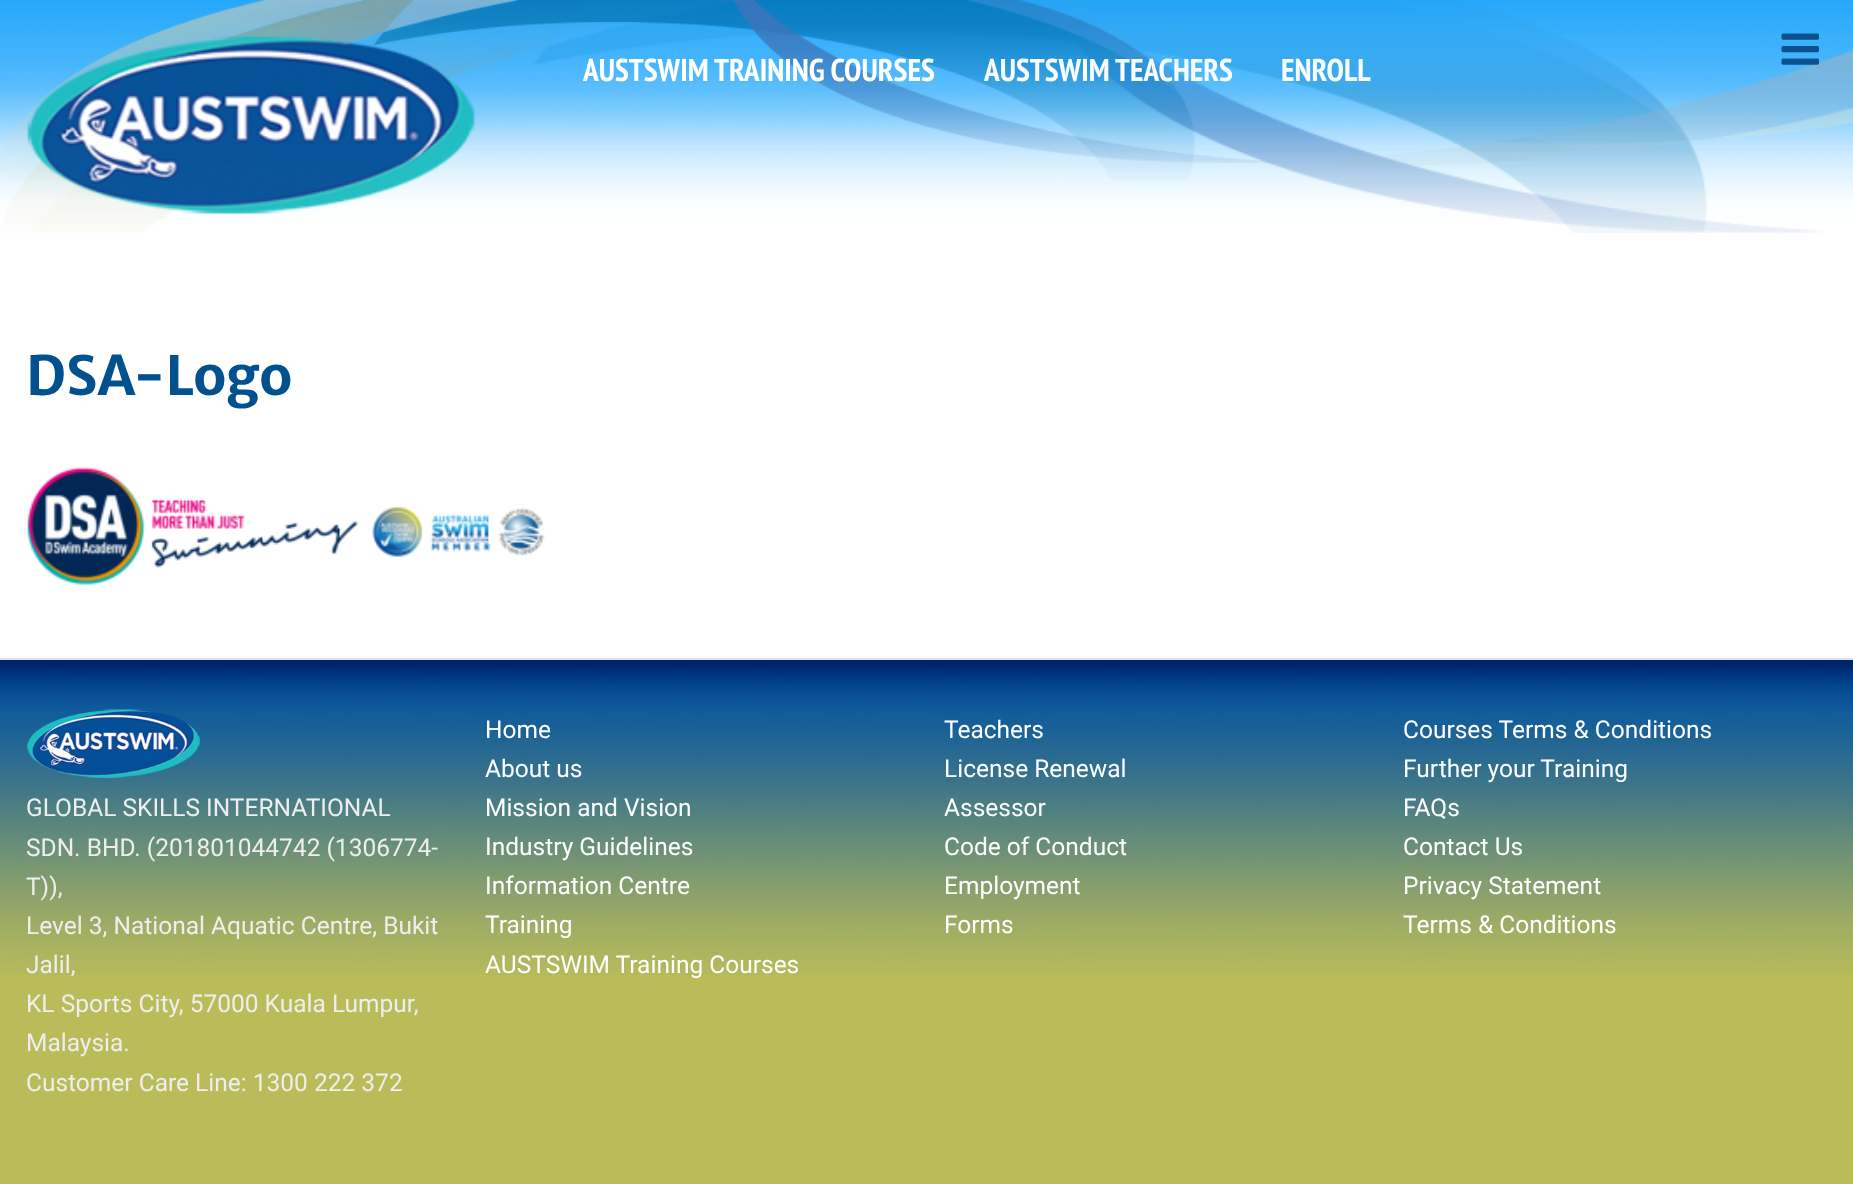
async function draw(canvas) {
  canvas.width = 1853;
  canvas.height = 1184;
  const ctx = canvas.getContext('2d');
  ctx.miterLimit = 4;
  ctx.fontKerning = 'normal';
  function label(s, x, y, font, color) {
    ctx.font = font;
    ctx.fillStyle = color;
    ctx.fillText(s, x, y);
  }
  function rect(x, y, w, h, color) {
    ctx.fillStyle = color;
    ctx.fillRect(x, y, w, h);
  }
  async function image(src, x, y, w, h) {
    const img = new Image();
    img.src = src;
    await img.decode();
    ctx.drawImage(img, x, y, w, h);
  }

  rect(0, 0, 1853, 1184, '#fff');
  await image('assets/img2.png', 0, 0, 1853, 233);
  await image('assets/img3.png', 0, 0, 1853, 181);
  await image('assets/img1.png', 1781, 33, 38, 32);
  await image('assets/img4.png', 27, 36, 449, 178);
  label('AUSTSWIM TRAINING COURSES', 583, 81, 'bold 31.5px PT Sans Narrow', '#fff');
  label('AUSTSWIM TEACHERS', 984, 81, 'bold 31.5px PT Sans Narrow', '#f9fcfe');
  label('ENROLL', 1281, 81, 'bold 31.5px PT Sans Narrow', '#f9fcfe');
  label('DSA-Logo', 26, 395, 'bold 54px Merriweather Sans', '#02518f');
  await image('assets/img5.png', 26, 467, 519, 118);
  rect(0, 975, 1853, 209, '#babc59');
  await image('assets/img6.png', 0, 660, 1853, 315);
  rect(0, 658, 1853, 2, '#e0e0e0');
  await image('assets/img7.png', 27, 709, 174, 69);
  label('GLOBAL SKILLS INTERNATIONAL', 26, 816, '24.5px Roboto', '#eee');
  label('SDN. BHD. (201801044742 (1306774-', 26, 856, '24.5px Roboto', '#eee');
  label('T)),', 26, 895, '24.5px Roboto', '#eee');
  label('Level 3, National Aquatic Centre, Bukit', 26, 934, '24.5px Roboto', '#eee');
  label('Jalil,', 26, 973, '24.5px Roboto', '#eee');
  label('KL Sports City, 57000 Kuala Lumpur,', 26, 1012, '24.5px Roboto', '#eee');
  label('Malaysia.', 26, 1051, '24.5px Roboto', '#eee');
  label('Customer Care Line: 1300 222 372', 26, 1091, '24.5px Roboto', '#eee');
  label('Home', 485, 738, '24.5px Roboto', '#fff');
  label('About us', 485, 777, '24.5px Roboto', '#fff');
  label('Mission and Vision', 485, 816, '24.5px Roboto', '#fff');
  label('Industry Guidelines', 485, 855, '24.5px Roboto', '#fff');
  label('Information Centre', 485, 894, '24.5px Roboto', '#fff');
  label('Training', 485, 933, '24.5px Roboto', '#fff');
  label('AUSTSWIM Training Courses', 485, 973, '24.5px Roboto', '#fff');
  label('Teachers', 944, 738, '24.5px Roboto', '#fff');
  label('License Renewal', 944, 777, '24.5px Roboto', '#fff');
  label('Assessor', 944, 816, '24.5px Roboto', '#fff');
  label('Code of Conduct', 944, 855, '24.5px Roboto', '#fff');
  label('Employment', 944, 894, '24.5px Roboto', '#fff');
  label('Forms', 944, 933, '24.5px Roboto', '#fff');
  label('Courses Terms & Conditions', 1403, 738, '24.5px Roboto', '#fff');
  label('Further your Training', 1403, 777, '24.5px Roboto', '#fff');
  label('FAQs', 1403, 816, '24.5px Roboto', '#fff');
  label('Contact Us', 1403, 855, '24.5px Roboto', '#fff');
  label('Privacy Statement', 1403, 894, '24.5px Roboto', '#fff');
  label('Terms & Conditions', 1403, 933, '24.5px Roboto', '#fff');
}

draw(document.querySelector('canvas'));
